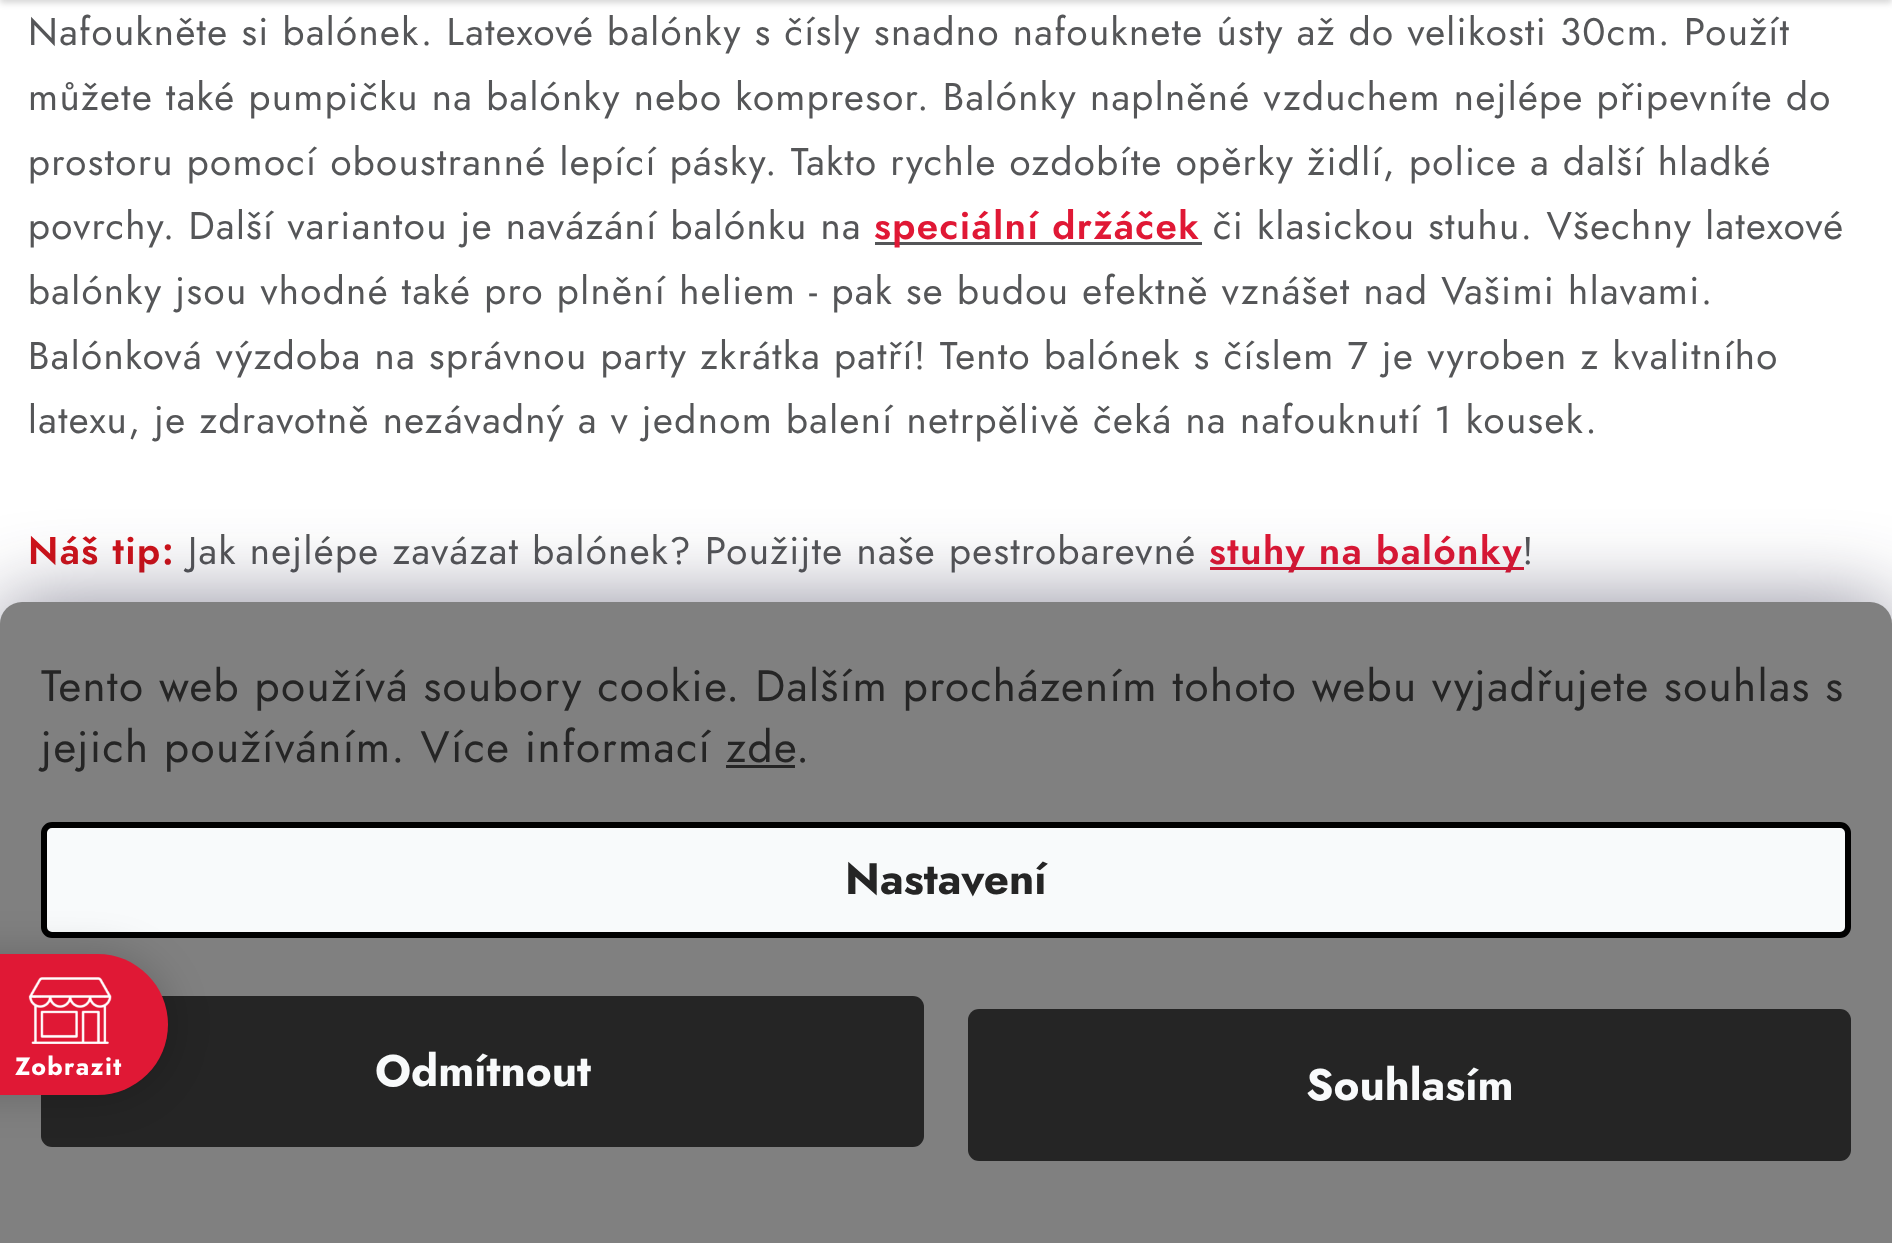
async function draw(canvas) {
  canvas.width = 1892;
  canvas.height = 1243;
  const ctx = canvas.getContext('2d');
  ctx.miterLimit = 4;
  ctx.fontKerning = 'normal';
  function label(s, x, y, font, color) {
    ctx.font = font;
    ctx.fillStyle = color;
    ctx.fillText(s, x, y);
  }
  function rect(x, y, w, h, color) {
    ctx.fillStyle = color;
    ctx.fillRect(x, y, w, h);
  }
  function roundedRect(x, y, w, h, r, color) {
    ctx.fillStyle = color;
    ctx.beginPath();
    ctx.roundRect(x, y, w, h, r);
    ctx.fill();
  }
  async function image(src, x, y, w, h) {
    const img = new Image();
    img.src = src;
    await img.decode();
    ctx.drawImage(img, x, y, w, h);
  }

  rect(0, 0, 1892, 1243, '#fff');
  ctx.fillStyle = '#00000029';
  ctx.filter = 'blur(3px)';
  ctx.beginPath();
  ctx.rect(0, -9, 1892, 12);
  ctx.fill();
  ctx.filter = 'none';
  ctx.letterSpacing = '1.38px';
  label('Nafoukněte si balónek. Latexové balónky s čísly snadno nafouknete ústy až do velikosti 30cm. Použít', 28, 45, '38.5px Jost', '#555658');
  label('můžete také pumpičku na balónky nebo kompresor. Balónky naplněné vzduchem nejlépe připevníte do', 28, 110, '38.5px Jost', '#555658');
  label('prostoru pomocí oboustranné lepící pásky. Takto rychle ozdobíte opěrky židlí, police a další hladké', 28, 175, '38.5px Jost', '#555658');
  label('povrchy. Další variantou je navázání balónku na', 28, 239, '38.5px Jost', '#555658');
  rect(875, 242, 327, 3, '#555658');
  label('speciální držáček', 874, 239, '600 38.5px Jost', '#e01835');
  label('či klasickou stuhu. Všechny latexové', 1213, 239, '38.5px Jost', '#555658');
  label('balónky jsou vhodné také pro plnění heliem - pak se budou efektně vznášet nad Vašimi hlavami.', 28, 304, '38.5px Jost', '#555658');
  label('Balónková výzdoba na správnou party zkrátka patří! Tento balónek s číslem 7 je vyroben z kvalitního', 28, 369, '38.5px Jost', '#555658');
  label('latexu, je zdravotně nezávadný a v jednom balení netrpělivě čeká na nafouknutí 1 kousek.', 28, 433, '38.5px Jost', '#555658');
  label('Náš tip:', 28, 564, '600 38.5px Jost', '#d0121a');
  label('Jak nejlépe zavázat balónek? Použijte naše pestrobarevné', 188, 564, '38.5px Jost', '#555658');
  rect(1210, 567, 314, 3, '#e01835');
  label('stuhy na balónky', 1209, 564, '600 38.5px Jost', '#e01835');
  label('!', 1522, 564, '38.5px Jost', '#555658');
  ctx.fillStyle = '#1b193980';
  ctx.filter = 'blur(41px)';
  ctx.beginPath();
  ctx.roundRect(0, 602, 1892, 641, 22);
  ctx.fill();
  ctx.filter = 'none';
  ctx.fillStyle = '#808080';
  ctx.beginPath();
  ctx.roundRect(0, 602, 1892, 641, [22, 22, 0, 0]);
  ctx.fill();
  label('Tento web používá soubory cookie. Dalším procházením tohoto webu vyjadřujete souhlas s', 41, 701, '44px Jost', '#252525');
  label('jejich používáním. Více informací zde', 41, 762, '44px Jost', '#252525');
  label('.', 796, 762, '44px Jost', '#252525');
  rect(726, 765, 69, 3, '#252525');
  ctx.fillStyle = '#f8fafb';
  ctx.beginPath();
  ctx.roundRect(44, 825, 1804, 110, 8);
  ctx.fill();
  ctx.strokeStyle = '#000';
  ctx.lineWidth = 6;
  ctx.stroke();
  ctx.letterSpacing = '0px';
  label('Nastavení', 845, 894, 'bold 44px Jost', '#252525');
  roundedRect(41, 996, 883, 151, 11, '#252525');
  label('Odmítnout', 375, 1086, 'bold 44px Jost', '#f8fafb');
  roundedRect(968, 1009, 883, 152, 11, '#252525');
  label('Souhlasím', 1306, 1100, 'bold 44px Jost', '#f8fafb');
  ctx.fillStyle = '#00000033';
  ctx.filter = 'blur(20.5px)';
  ctx.beginPath();
  ctx.roundRect(-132, 954, 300, 141, 70.5);
  ctx.fill();
  ctx.filter = 'none';
  roundedRect(-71, 954, 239, 141, 70.5, '#e01835');
  await image('assets/img1.png', 28, 977, 84, 67);
  ctx.letterSpacing = '1.38px';
  label('Zobrazit', 15, 1075, 'bold 25px Jost', '#fff');
}

draw(document.querySelector('canvas'));
